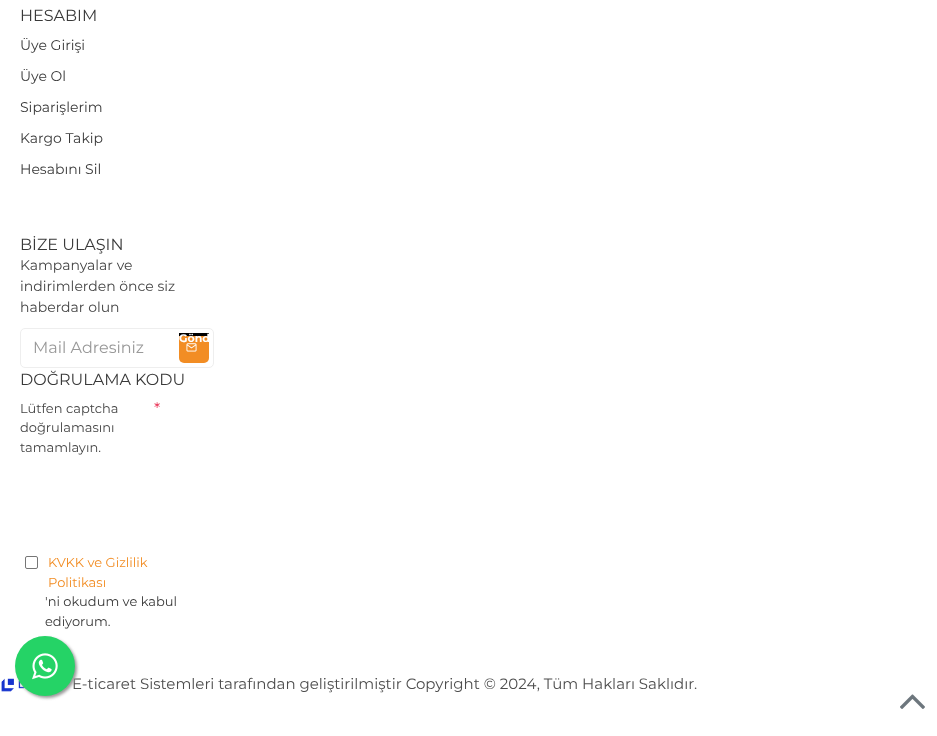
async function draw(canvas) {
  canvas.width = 937;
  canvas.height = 736;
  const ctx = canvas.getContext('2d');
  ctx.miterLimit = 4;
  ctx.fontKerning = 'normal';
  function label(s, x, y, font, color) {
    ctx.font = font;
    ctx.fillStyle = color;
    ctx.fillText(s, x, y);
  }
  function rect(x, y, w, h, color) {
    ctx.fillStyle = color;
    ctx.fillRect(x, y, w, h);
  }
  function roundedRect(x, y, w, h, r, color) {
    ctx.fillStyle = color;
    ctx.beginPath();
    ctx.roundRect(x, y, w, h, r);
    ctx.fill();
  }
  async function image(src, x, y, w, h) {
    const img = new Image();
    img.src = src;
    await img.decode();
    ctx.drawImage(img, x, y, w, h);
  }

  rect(0, 0, 937, 736, '#fff');
  label('HESABIM', 20, 21, '100 16px Montserrat', '#393939');
  label('Üye Girişi', 20, 50, '100 14px Montserrat', '#393939');
  label('Üye Ol', 20, 81, '100 14px Montserrat', '#393939');
  label('Siparişlerim', 20, 112, '100 14px Montserrat', '#393939');
  label('Kargo Takip', 20, 143, '100 14px Montserrat', '#393939');
  label('Hesabını Sil', 20, 174, '100 14px Montserrat', '#393939');
  label('BİZE ULAŞIN', 20, 250, '100 16px Montserrat', '#393939');
  label('Kampanyalar ve', 20, 270, '100 14px Montserrat', '#454545');
  label('indirimlerden önce siz', 20, 291, '100 14px Montserrat', '#454545');
  label('haberdar olun', 20, 312, '100 14px Montserrat', '#454545');
  ctx.beginPath();
  ctx.roundRect(20.5, 328.5, 193, 39, 4.5);
  ctx.strokeStyle = '#eee';
  ctx.stroke();
  roundedRect(179, 333, 30, 30, 5, '#f28d24');
  rect(179, 333, 30, 3, '#000');
  label('Gönd', 179, 342, '100 11px "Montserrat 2"', '#fff');
  await image('assets/img1.png', 186, 343, 11, 9);
  label('Mail Adresiniz', 33, 353, '100 16px Montserrat', '#999');
  label('DOĞRULAMA KODU', 20, 385, '100 16px Montserrat', '#393939');
  label('Lütfen captcha', 20, 413, '100 13px Montserrat', '#454545');
  label('*', 154, 414, '100 16px Montserrat', '#e8284d');
  label('doğrulamasını', 20, 432, '100 13px Montserrat', '#454545');
  label('tamamlayın.', 20, 452, '100 13px Montserrat', '#454545');
  ctx.beginPath();
  ctx.roundRect(25.5, 556.5, 12, 12, 1.5);
  ctx.strokeStyle = '#767676';
  ctx.stroke();
  label('KVKK ve Gizlilik', 48, 567, '100 13px Montserrat', '#f28d24');
  label('Politikası', 48, 587, '100 13px Montserrat', '#f28d24');
  label('\'ni okudum ve kabul', 45, 606, '100 13px Montserrat', '#393939');
  label('ediyorum.', 45, 626, '100 13px Montserrat', '#393939');
  await image('assets/img2.png', 1, 678, 25, 14);
  label('E-ticaret Sistemleri tarafından geliştirilmiştir Copyright © 2024, Tüm Hakları Saklıdır.', 72, 689, '100 15px Montserrat', '#4d4d4d');
  ctx.fillStyle = '#999';
  ctx.filter = 'blur(1.5px)';
  ctx.beginPath();
  ctx.roundRect(17, 638, 60, 60, 30);
  ctx.fill();
  ctx.filter = 'none';
  ctx.fillStyle = '#25d366';
  ctx.beginPath();
  ctx.arc(45, 666, 30, 0, 2 * Math.PI);
  ctx.fill();
  await image('assets/img3.png', 32, 653, 26, 27);
  await image('assets/img4.png', 900, 694, 25, 15);
}

draw(document.querySelector('canvas'));
